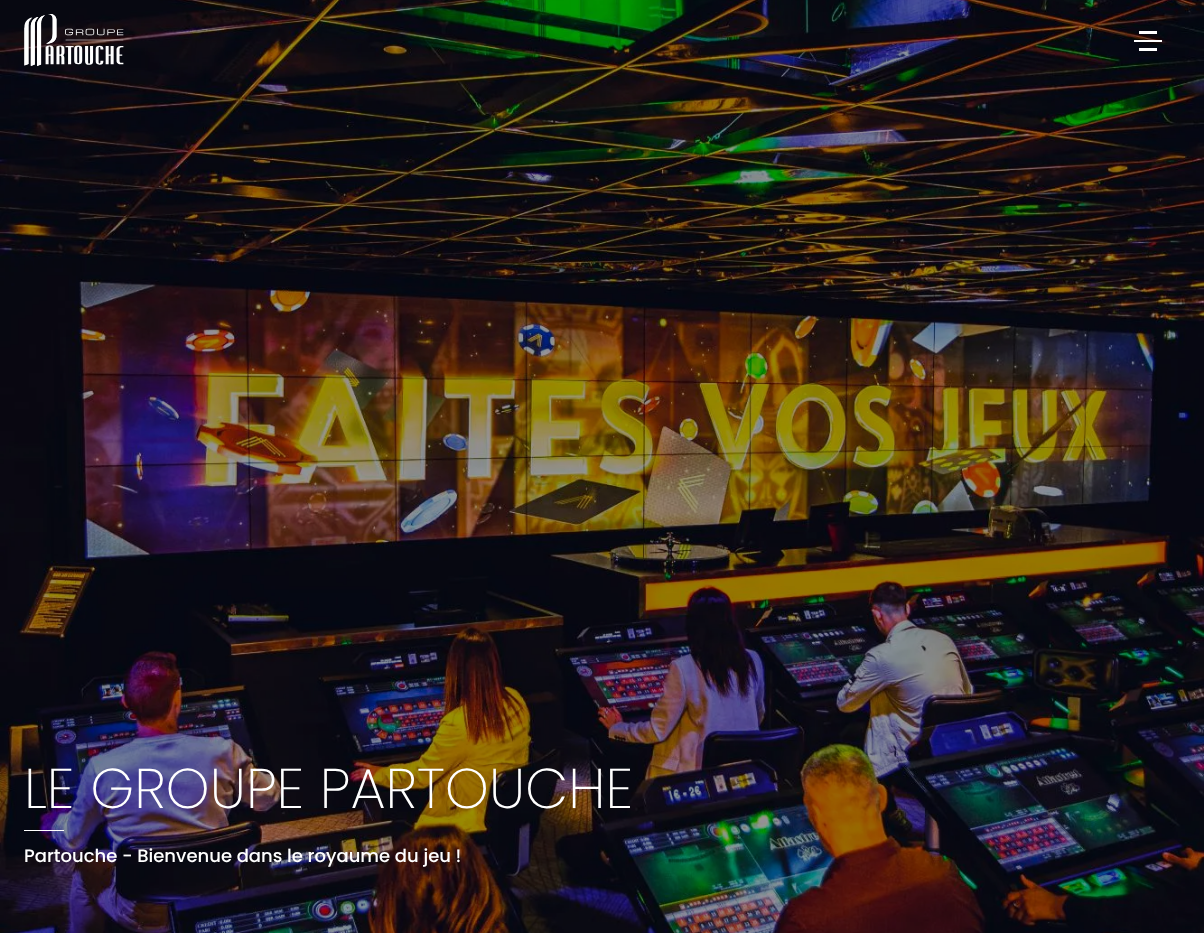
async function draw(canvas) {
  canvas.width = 1204;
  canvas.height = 933;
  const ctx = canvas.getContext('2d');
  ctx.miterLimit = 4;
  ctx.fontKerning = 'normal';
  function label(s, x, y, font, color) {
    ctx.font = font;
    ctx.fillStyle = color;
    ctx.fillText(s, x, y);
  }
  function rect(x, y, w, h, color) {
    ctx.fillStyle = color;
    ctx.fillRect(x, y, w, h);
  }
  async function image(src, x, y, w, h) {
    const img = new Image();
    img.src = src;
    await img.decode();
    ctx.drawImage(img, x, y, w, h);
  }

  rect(0, 0, 1204, 933, '#fff');
  await image('assets/img2.png', 0, 0, 1204, 933);
  await image('assets/img1.png', 24, 14, 100, 52);
  rect(1139, 31, 18, 3, '#fff');
  rect(1134, 40, 28, 2, '#fff');
  rect(1139, 48, 18, 3, '#fff');
  label('LE GROUPE PARTOUCHE', 24, 808, '200 56px Poppins', '#fff');
  rect(24, 830, 40, 1, '#fff');
  label('Partouche - Bienvenue dans le royaume du jeu !', 24, 862, '500 18px Poppins', '#fff');
}

draw(document.querySelector('canvas'));
